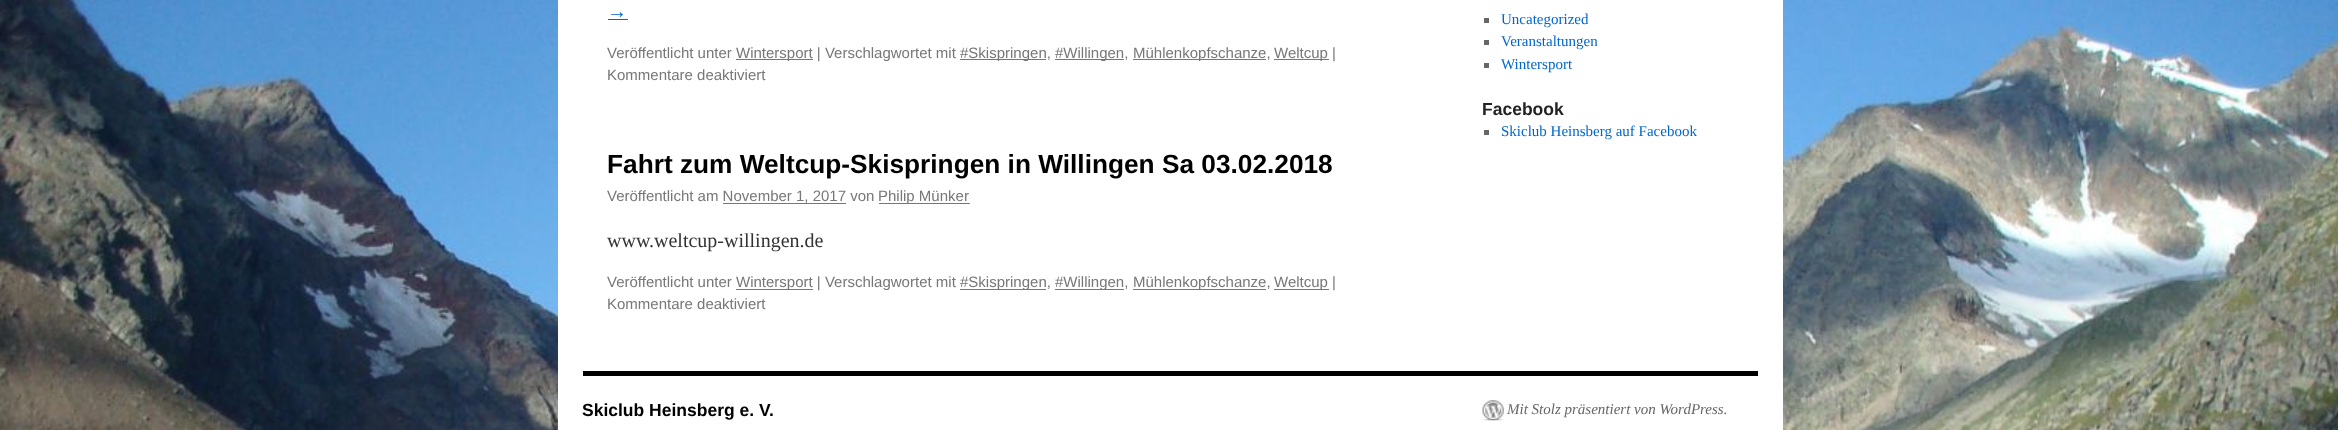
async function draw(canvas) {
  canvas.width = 2338;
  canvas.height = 430;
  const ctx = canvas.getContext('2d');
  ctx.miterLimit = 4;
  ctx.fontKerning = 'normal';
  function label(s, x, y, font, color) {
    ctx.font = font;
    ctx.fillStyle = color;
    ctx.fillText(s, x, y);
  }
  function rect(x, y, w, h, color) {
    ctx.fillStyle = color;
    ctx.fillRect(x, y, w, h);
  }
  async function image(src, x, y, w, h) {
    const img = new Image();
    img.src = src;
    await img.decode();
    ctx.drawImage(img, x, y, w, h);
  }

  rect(0, 0, 2338, 430, '#fff');
  await image('assets/img1.png', 0, 0, 2338, 430);
  rect(558, 0, 1225, 430, '#fff');
  label('→', 607, 18, '20px Liberation Serif', '#06c');
  rect(608, 19, 20, 1, '#06c');
  label('Veröffentlicht unter', 607, 58, '15px Liberation Sans', '#777');
  rect(736, 59, 77, 1, '#777');
  label('Wintersport | Verschlagwortet mit', 736, 58, '15px Liberation Sans', '#777');
  rect(960, 59, 86, 1, '#777');
  label('#Skispringen,', 960, 58, '15px Liberation Sans', '#777');
  rect(1055, 59, 69, 1, '#777');
  label('#Willingen,', 1055, 58, '15px Liberation Sans', '#777');
  rect(1133, 59, 133, 1, '#777');
  label('Mühlenkopfschanze,', 1133, 58, '15px Liberation Sans', '#777');
  rect(1274, 59, 55, 1, '#777');
  label('Weltcup |', 1274, 58, '15px Liberation Sans', '#777');
  label('Kommentare deaktiviert', 607, 80, '15px Liberation Sans', '#777');
  label('Fahrt zum Weltcup-Skispringen in Willingen Sa 03.02.2018', 607, 173, 'bold 26.25px Liberation Sans', '#000');
  label('Veröffentlicht am November 1, 2017 von', 607, 201, '15px Liberation Sans', '#777');
  rect(879, 203, 91, 1, '#777');
  label('Philip Münker', 878, 201, '15px Liberation Sans', '#777');
  rect(723, 203, 123, 1, '#777');
  label('www.weltcup-willingen.de', 607, 247, '20px Liberation Serif', '#333');
  label('Veröffentlicht unter', 607, 287, '15px Liberation Sans', '#777');
  rect(736, 289, 77, 1, '#777');
  label('Wintersport | Verschlagwortet mit', 736, 287, '15px Liberation Sans', '#777');
  rect(960, 289, 86, 1, '#777');
  label('#Skispringen,', 960, 287, '15px Liberation Sans', '#777');
  rect(1055, 289, 69, 1, '#777');
  label('#Willingen,', 1055, 287, '15px Liberation Sans', '#777');
  rect(1133, 289, 133, 1, '#777');
  label('Mühlenkopfschanze,', 1133, 287, '15px Liberation Sans', '#777');
  rect(1274, 289, 55, 1, '#777');
  label('Weltcup |', 1274, 287, '15px Liberation Sans', '#777');
  label('Kommentare deaktiviert', 607, 309, '15px Liberation Sans', '#777');
  rect(1484, 18, 5, 5, '#666');
  label('Uncategorized', 1501, 24, '15px Liberation Serif', '#06c');
  rect(1484, 40, 5, 5, '#666');
  label('Veranstaltungen', 1501, 46, '15px Liberation Serif', '#06c');
  rect(1484, 63, 5, 5, '#666');
  label('Wintersport', 1501, 69, '15px Liberation Serif', '#06c');
  label('Facebook', 1482, 115, 'bold 17.5px Liberation Sans', '#222');
  rect(1484, 130, 5, 5, '#666');
  label('Skiclub Heinsberg auf Facebook', 1501, 136, '15px Liberation Serif', '#06c');
  rect(583, 371, 1175, 5, '#000');
  label('Skiclub Heinsberg e. V.', 582, 416, 'bold 17.5px Liberation Sans', '#000');
  await image('assets/img2.png', 1482, 400, 22, 21);
  label('Mit Stolz präsentiert von WordPress.', 1507, 414, 'italic 15px Liberation Serif', '#666');
}

draw(document.querySelector('canvas'));
